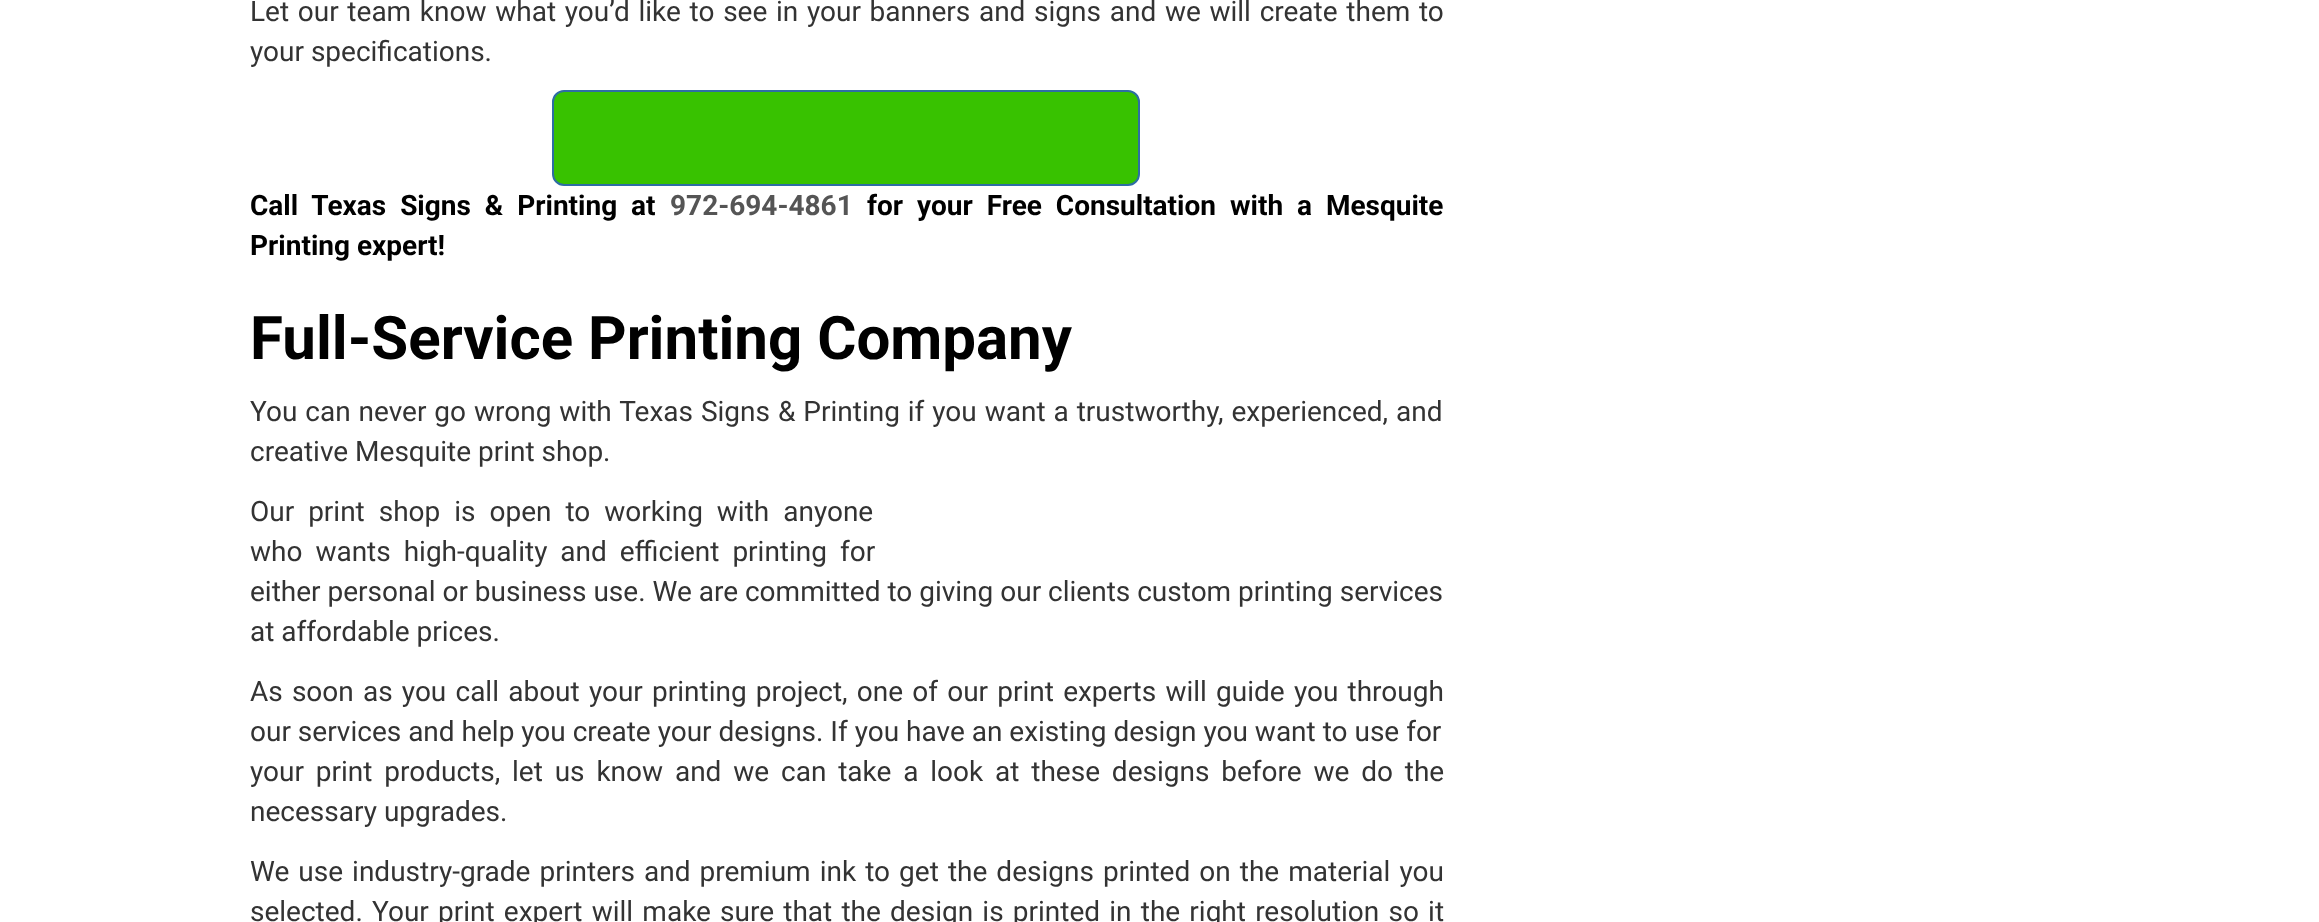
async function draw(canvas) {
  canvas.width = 2319;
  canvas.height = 922;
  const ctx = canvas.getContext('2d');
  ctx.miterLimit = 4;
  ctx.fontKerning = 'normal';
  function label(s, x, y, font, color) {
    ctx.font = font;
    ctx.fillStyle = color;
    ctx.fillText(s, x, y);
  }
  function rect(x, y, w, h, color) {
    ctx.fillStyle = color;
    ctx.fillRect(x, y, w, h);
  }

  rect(0, 0, 2319, 922, '#fff');
  ctx.wordSpacing = '1.75px';
  label('Let our team know what you’d like to see in your banners and signs and we will create them to', 250, 21, '28px Roboto', '#333');
  ctx.wordSpacing = '0px';
  label('your specifications.', 250, 61, '28px Roboto', '#333');
  ctx.fillStyle = '#38c200';
  ctx.beginPath();
  ctx.roundRect(553, 91, 586, 94, 11);
  ctx.fill();
  ctx.strokeStyle = '#2e6da4';
  ctx.lineWidth = 2;
  ctx.stroke();
  ctx.wordSpacing = '7px';
  label('Call Texas Signs & Printing at', 250, 215, 'bold 28px Roboto', '#000');
  ctx.wordSpacing = '0px';
  label('972-694-4861', 670, 215, 'bold 28px Roboto', '#555');
  ctx.wordSpacing = '7px';
  label('for your Free Consultation with a Mesquite', 867, 215, 'bold 28px Roboto', '#000');
  ctx.wordSpacing = '0px';
  label('Printing expert!', 250, 255, 'bold 28px Roboto', '#000');
  label('Full-Service Printing Company', 250, 359, 'bold 60px Roboto', '#000');
  ctx.wordSpacing = '1px';
  label('You can never go wrong with Texas Signs & Printing if you want a trustworthy, experienced, and', 250, 421, '28px Roboto', '#333');
  ctx.wordSpacing = '0px';
  label('creative Mesquite print shop.', 250, 461, '28px Roboto', '#333');
  ctx.wordSpacing = '7px';
  label('Our print shop is open to working with anyone', 250, 521, '28px Roboto', '#333');
  ctx.wordSpacing = '6px';
  label('who wants high-quality and efficient printing for', 250, 561, '28px Roboto', '#333');
  ctx.wordSpacing = '0px';
  label('either personal or business use. We are committed to giving our clients custom printing services', 250, 601, '28px Roboto', '#333');
  label('at affordable prices.', 250, 641, '28px Roboto', '#333');
  ctx.wordSpacing = '2.25px';
  label('As soon as you call about your printing project, one of our print experts will guide you through', 250, 701, '28px Roboto', '#333');
  ctx.wordSpacing = '0px';
  label('our services and help you create your designs. If you have an existing design you want to use for', 250, 741, '28px Roboto', '#333');
  ctx.wordSpacing = '4.9px';
  label('your print products, let us know and we can take a look at these designs before we do the', 250, 781, '28px Roboto', '#333');
  ctx.wordSpacing = '0px';
  label('necessary upgrades.', 250, 821, '28px Roboto', '#333');
  ctx.wordSpacing = '2.1px';
  label('We use industry-grade printers and premium ink to get the designs printed on the material you', 250, 881, '28px Roboto', '#333');
  ctx.wordSpacing = '2.25px';
  label('selected. Your print expert will make sure that the design is printed in the right resolution so it', 250, 921, '28px Roboto', '#333');
}

draw(document.querySelector('canvas'));
